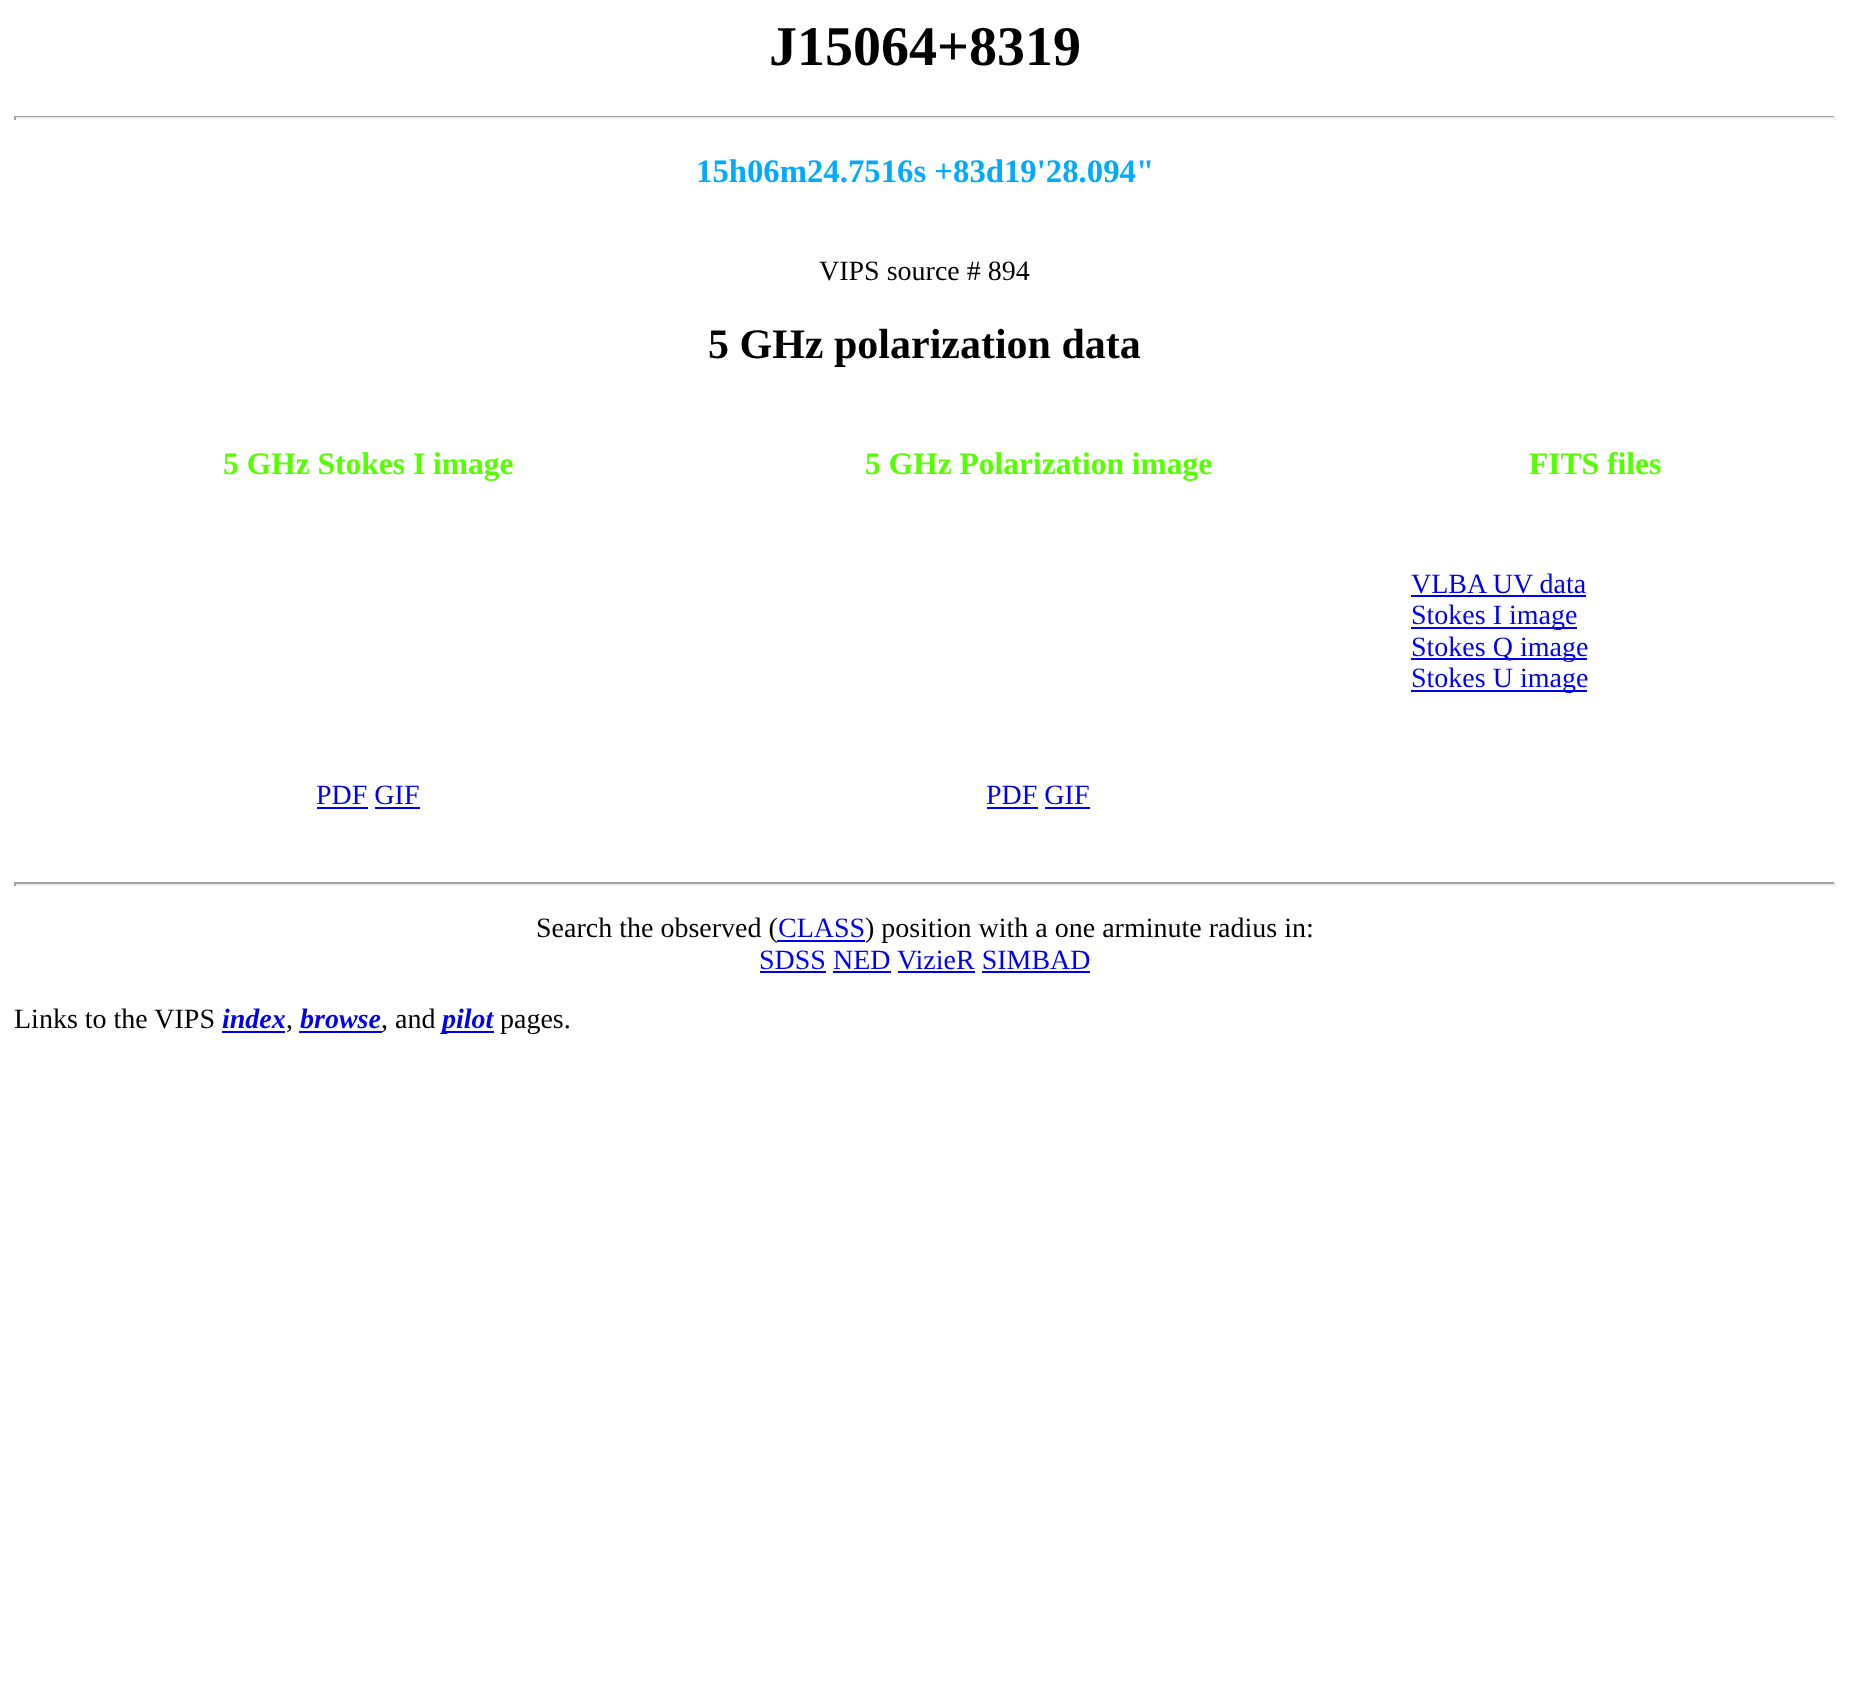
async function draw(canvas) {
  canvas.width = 1849;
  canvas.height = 1684;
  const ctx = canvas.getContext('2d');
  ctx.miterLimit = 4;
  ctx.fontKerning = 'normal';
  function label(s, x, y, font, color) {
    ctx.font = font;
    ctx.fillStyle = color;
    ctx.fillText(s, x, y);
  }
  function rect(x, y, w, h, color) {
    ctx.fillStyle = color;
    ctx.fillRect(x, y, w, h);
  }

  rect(0, 0, 1849, 1684, '#fff');
  label('J15064+8319', 769, 65, 'bold 56px Liberation Serif', '#000');
  rect(14, 116, 1822, 1, '#9f9f9f');
  rect(1834, 116, 2, 4, '#eee');
  rect(14, 117, 1822, 2, '#eee');
  rect(14, 116, 2, 4, '#9f9f9f');
  label('15h06m24.7516s +83d19\'28.094"', 696, 182, 'bold 32.75px Liberation Serif', '#0af');
  label('VIPS source # 894', 819, 280, '28px Liberation Serif', '#000');
  label('5 GHz polarization data', 708, 358, 'bold 42px Liberation Serif', '#000');
  label('5 GHz Stokes I image', 223, 474, 'bold 31.5px Liberation Serif', '#5f0');
  label('5 GHz Polarization image', 865, 474, 'bold 31.5px Liberation Serif', '#5f0');
  label('FITS files', 1529, 474, 'bold 31.5px Liberation Serif', '#5f0');
  label('VLBA UV data', 1411, 593, '28px Liberation Serif', '#00e');
  rect(1411, 595, 175, 2, '#00e');
  rect(1411, 627, 166, 2, '#00e');
  label('Stokes I image', 1411, 624, '28px Liberation Serif', '#00e');
  rect(1411, 658, 176, 2, '#00e');
  label('Stokes Q image', 1411, 656, '28px Liberation Serif', '#00e');
  rect(1411, 690, 176, 2, '#00e');
  label('Stokes U image', 1411, 687, '28px Liberation Serif', '#00e');
  label('PDF GIF', 316, 804, '28px Liberation Serif', '#00e');
  rect(317, 807, 51, 2, '#00e');
  rect(375, 807, 45, 2, '#00e');
  label('PDF GIF', 986, 804, '28px Liberation Serif', '#00e');
  rect(987, 807, 51, 2, '#00e');
  rect(1045, 807, 45, 2, '#00e');
  rect(14, 882, 1822, 2, '#9f9f9f');
  rect(1834, 882, 2, 4, '#eee');
  rect(14, 884, 1822, 2, '#eee');
  rect(14, 882, 2, 4, '#9f9f9f');
  label('Search the observed (', 536, 937, '28px Liberation Serif', '#000');
  label('CLASS', 778, 937, '28px Liberation Serif', '#00e');
  rect(777, 940, 88, 2, '#00e');
  label(') position with a one arminute radius in:', 865, 937, '28px Liberation Serif', '#000');
  label('SDSS NED', 759, 969, '28px Liberation Serif', '#00e');
  rect(760, 971, 66, 2, '#00e');
  label('VizieR SIMBAD', 897, 969, '28px Liberation Serif', '#00e');
  rect(898, 971, 77, 2, '#00e');
  rect(833, 971, 58, 2, '#00e');
  rect(982, 971, 108, 2, '#00e');
  label('Links to the VIPS', 14, 1028, '28px Liberation Serif', '#000');
  label('index', 222, 1028, 'italic bold 28px Liberation Serif', '#00e');
  rect(222, 1031, 63, 2, '#00e');
  label(',', 286, 1028, '28px Liberation Serif', '#000');
  label('browse', 300, 1028, 'italic bold 28px Liberation Serif', '#00e');
  rect(299, 1031, 83, 2, '#00e');
  label(', and', 381, 1028, '28px Liberation Serif', '#000');
  rect(443, 1031, 51, 2, '#00e');
  label('pilot', 442, 1028, 'italic bold 28px Liberation Serif', '#00e');
  label('pages.', 500, 1028, '28px Liberation Serif', '#000');
}

draw(document.querySelector('canvas'));
